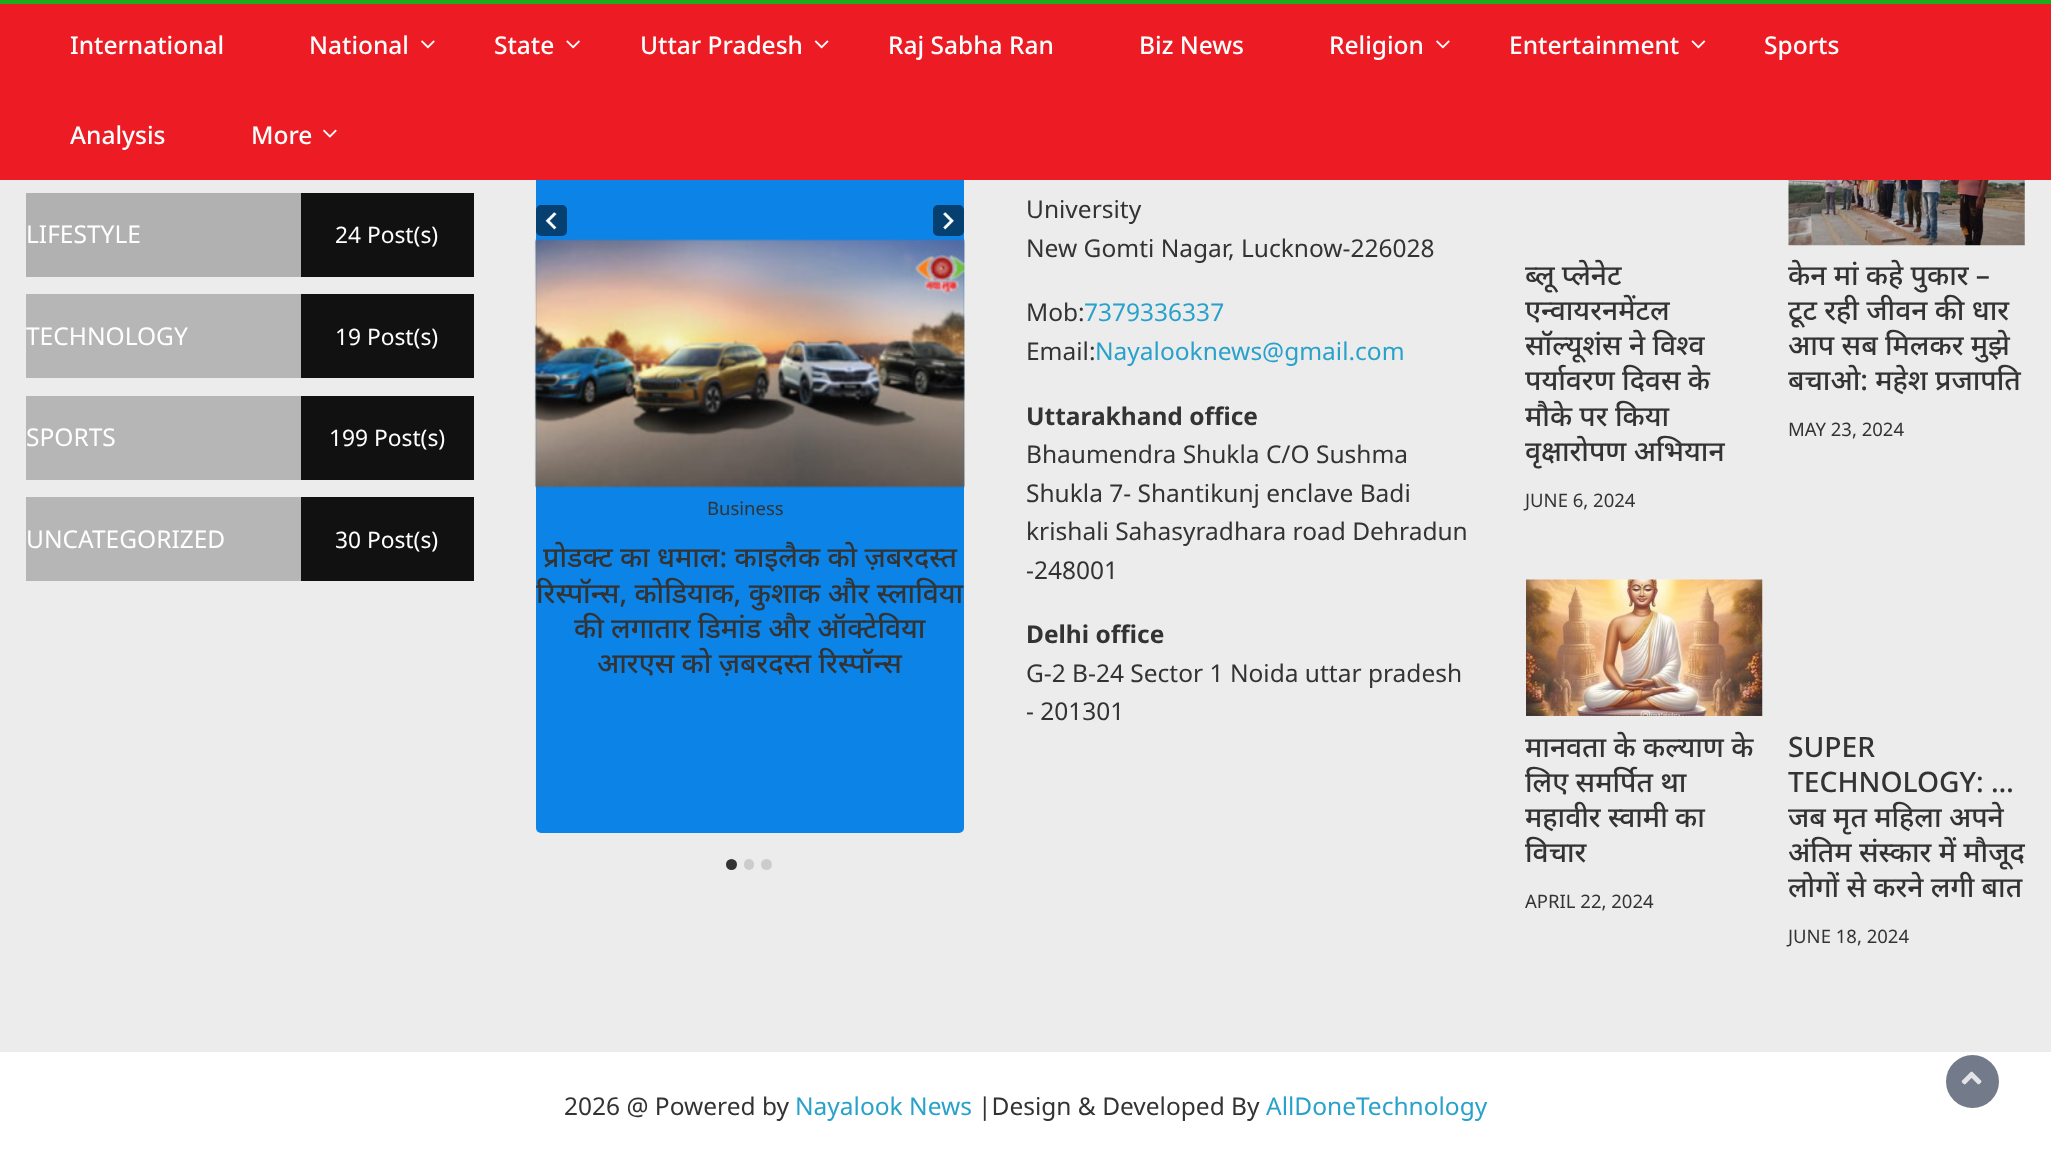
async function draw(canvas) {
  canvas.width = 2051;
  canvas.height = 1160;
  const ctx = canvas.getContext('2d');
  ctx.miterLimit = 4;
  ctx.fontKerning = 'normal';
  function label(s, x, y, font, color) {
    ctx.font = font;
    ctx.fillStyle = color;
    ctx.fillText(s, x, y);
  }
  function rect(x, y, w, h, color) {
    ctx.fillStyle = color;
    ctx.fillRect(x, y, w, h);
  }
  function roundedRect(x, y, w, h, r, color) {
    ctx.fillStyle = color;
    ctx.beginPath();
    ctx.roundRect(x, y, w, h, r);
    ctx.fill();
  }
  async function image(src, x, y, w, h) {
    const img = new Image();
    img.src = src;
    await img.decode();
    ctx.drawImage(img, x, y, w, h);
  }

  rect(0, 0, 2051, 1160, '#fff');
  rect(0, 0, 2051, 4, '#1bad1b');
  rect(0, 180, 2051, 872, '#ececec');
  roundedRect(536, 100, 428, 733, 5, '#0c83e7');
  rect(0, 4, 2051, 176, '#ed1c24');
  label('International', 70, 54, '500 24.5px Noto Sans', '#fff');
  label('National', 309, 54, '500 24.5px Noto Sans', '#fff');
  await image('assets/img1.png', 421, 40, 14, 9);
  label('State', 494, 54, '500 24.5px Noto Sans', '#fff');
  await image('assets/img2.png', 566, 40, 14, 9);
  label('Uttar Pradesh', 640, 54, '500 24.5px Noto Sans', '#fff');
  await image('assets/img3.png', 814, 40, 15, 9);
  label('Raj Sabha Ran', 888, 54, '500 24.5px Noto Sans', '#fff');
  label('Biz News', 1139, 54, '500 24.5px Noto Sans', '#fff');
  label('Religion', 1329, 54, '500 24.5px Noto Sans', '#fff');
  await image('assets/img1.png', 1436, 40, 14, 9);
  label('Entertainment', 1509, 54, '500 24.5px Noto Sans', '#fff');
  await image('assets/img4.png', 1691, 40, 15, 9);
  label('Sports', 1764, 54, '500 24.5px Noto Sans', '#fff');
  label('Analysis', 70, 144, '500 24.5px Noto Sans', '#fff');
  label('More', 251, 144, '500 24.5px Noto Sans', '#fff');
  await image('assets/img5.png', 323, 129, 14, 9);
  rect(26, 193, 275, 84, '#b1b1b1');
  label('LIFESTYLE', 26, 243, '24.5px Noto Sans', '#fff');
  rect(301, 193, 173, 84, '#111');
  label('24 Post(s)', 335, 243, '22.75px Noto Sans', '#fff');
  rect(26, 294, 275, 84, '#b6b6b6');
  label('TECHNOLOGY', 26, 345, '24.5px Noto Sans', '#fff');
  rect(301, 294, 173, 84, '#111');
  label('19 Post(s)', 335, 345, '22.75px Noto Sans', '#fff');
  rect(26, 396, 275, 84, '#b6b6b6');
  label('SPORTS', 26, 446, '24.5px Noto Sans', '#fff');
  rect(301, 396, 173, 84, '#111');
  label('199 Post(s)', 329, 446, '22.75px Noto Sans', '#fff');
  rect(26, 497, 275, 84, '#b6b6b6');
  label('UNCATEGORIZED', 26, 548, '24.5px Noto Sans', '#fff');
  rect(301, 497, 173, 84, '#111');
  label('30 Post(s)', 335, 548, '22.75px Noto Sans', '#fff');
  roundedRect(536, 205, 31, 31, 5, '#064071');
  await image('assets/img6.png', 545, 212, 12, 18);
  roundedRect(933, 205, 31, 31, 5, '#064071');
  await image('assets/img7.png', 943, 212, 11, 18);
  await image('assets/img8.png', 534, 239, 431, 249);
  label('Business', 707, 515, '18.5px Noto Sans', '#333');
  label('प्रोडक्ट का धमाल: काइलैक को ज़बरदस्त', 543, 567, '500 28.2px Noto Sans', '#333');
  label('रिस्पॉन्स, कोडियाक, कुशाक और स्लाविया', 536, 603, '500 28.2px Noto Sans', '#333');
  label('की लगातार डिमांड और ऑक्टेविया', 574, 638, '500 28.2px Noto Sans', '#333');
  label('आरएस को ज़बरदस्त रिस्पॉन्स', 597, 673, '500 28.2px Noto Sans', '#333');
  ctx.beginPath();
  ctx.arc(731.5, 864.5, 5.5, 0, 2 * Math.PI);
  ctx.fill();
  roundedRect(744, 859, 10, 11, 5, '#ccc');
  ctx.beginPath();
  ctx.arc(766.5, 864.5, 5.5, 0, 2 * Math.PI);
  ctx.fill();
  label('University', 1026, 218, '24.5px Noto Sans', '#333');
  label('New Gomti Nagar, Lucknow-226028', 1026, 257, '24.5px Noto Sans', '#333');
  label('Mob:', 1026, 321, '24.5px Noto Sans', '#333');
  label('7379336337', 1084, 321, '24.5px Noto Sans', '#29a2cb');
  label('Email:', 1026, 360, '24.5px Noto Sans', '#333');
  label('Nayalooknews@gmail.com', 1095, 360, '24.5px Noto Sans', '#29a2cb');
  label('Uttarakhand office', 1026, 425, 'bold 24.5px Noto Sans', '#333');
  label('Bhaumendra Shukla C/O Sushma', 1026, 463, '24.5px Noto Sans', '#333');
  label('Shukla 7- Shantikunj enclave Badi', 1026, 502, '24.5px Noto Sans', '#333');
  label('krishali Sahasyradhara road Dehradun', 1026, 540, '24.5px Noto Sans', '#333');
  label('-248001', 1026, 579, '24.5px Noto Sans', '#333');
  label('Delhi office', 1026, 643, 'bold 24.5px Noto Sans', '#333');
  label('G-2 B-24 Sector 1 Noida uttar pradesh', 1026, 682, '24.5px Noto Sans', '#333');
  label('- 201301', 1026, 720, '24.5px Noto Sans', '#333');
  label('ब्लू प्लेनेट', 1525, 285, '500 28.2px Noto Sans', '#333');
  label('एन्वायरनमेंटल', 1525, 320, '500 28.2px Noto Sans', '#333');
  label('सॉल्यूशंस ने विश्व', 1525, 355, '500 28.2px Noto Sans', '#333');
  label('पर्यावरण दिवस के', 1525, 390, '500 28.2px Noto Sans', '#333');
  label('मौके पर किया', 1525, 426, '500 28.2px Noto Sans', '#333');
  label('वृक्षारोपण अभियान', 1525, 461, '500 28.2px Noto Sans', '#333');
  label('JUNE 6, 2024', 1525, 507, '18.5px Noto Sans', '#333');
  await image('assets/img9.png', 1788, 180, 237, 66);
  label('केन मां कहे पुकार –', 1788, 285, '500 28.2px Noto Sans', '#333');
  label('टूट रही जीवन की धार', 1788, 320, '500 28.2px Noto Sans', '#333');
  label('आप सब मिलकर मुझे', 1788, 355, '500 28.2px Noto Sans', '#333');
  label('बचाओ: महेश प्रजापति', 1788, 390, '500 28.2px Noto Sans', '#333');
  label('MAY 23, 2024', 1788, 436, '18.5px Noto Sans', '#333');
  await image('assets/img10.png', 1526, 579, 237, 137);
  label('मानवता के कल्याण के', 1525, 757, '500 28.2px Noto Sans', '#333');
  label('लिए समर्पित था', 1525, 792, '500 28.2px Noto Sans', '#333');
  label('महावीर स्वामी का', 1525, 827, '500 28.2px Noto Sans', '#333');
  label('विचार', 1525, 862, '500 28.2px Noto Sans', '#333');
  label('APRIL 22, 2024', 1525, 908, '18.5px Noto Sans', '#333');
  label('SUPER', 1788, 757, '500 28.2px Noto Sans', '#333');
  label('TECHNOLOGY: …', 1788, 792, '500 28.2px Noto Sans', '#333');
  label('जब मृत महिला अपने', 1788, 827, '500 28.2px Noto Sans', '#333');
  label('अंतिम संस्कार में मौजूद', 1788, 862, '500 28.2px Noto Sans', '#333');
  label('लोगों से करने लगी बात', 1788, 897, '500 28.2px Noto Sans', '#333');
  label('JUNE 18, 2024', 1788, 943, '18.5px Noto Sans', '#333');
  label('2026 @ Powered by', 564, 1115, '24.5px Noto Sans', '#333');
  label('Nayalook News', 795, 1115, '24.5px Noto Sans', '#29a2cb');
  label('|Design & Developed By', 978, 1115, '24.5px Noto Sans', '#333');
  label('AllDoneTechnology', 1266, 1115, '24.5px Noto Sans', '#29a2cb');
  ctx.fillStyle = '#737a89';
  ctx.beginPath();
  ctx.arc(1972.5, 1081.5, 26.5, 0, 2 * Math.PI);
  ctx.fill();
  await image('assets/img11.png', 1961, 1071, 21, 14);
}

draw(document.querySelector('canvas'));
